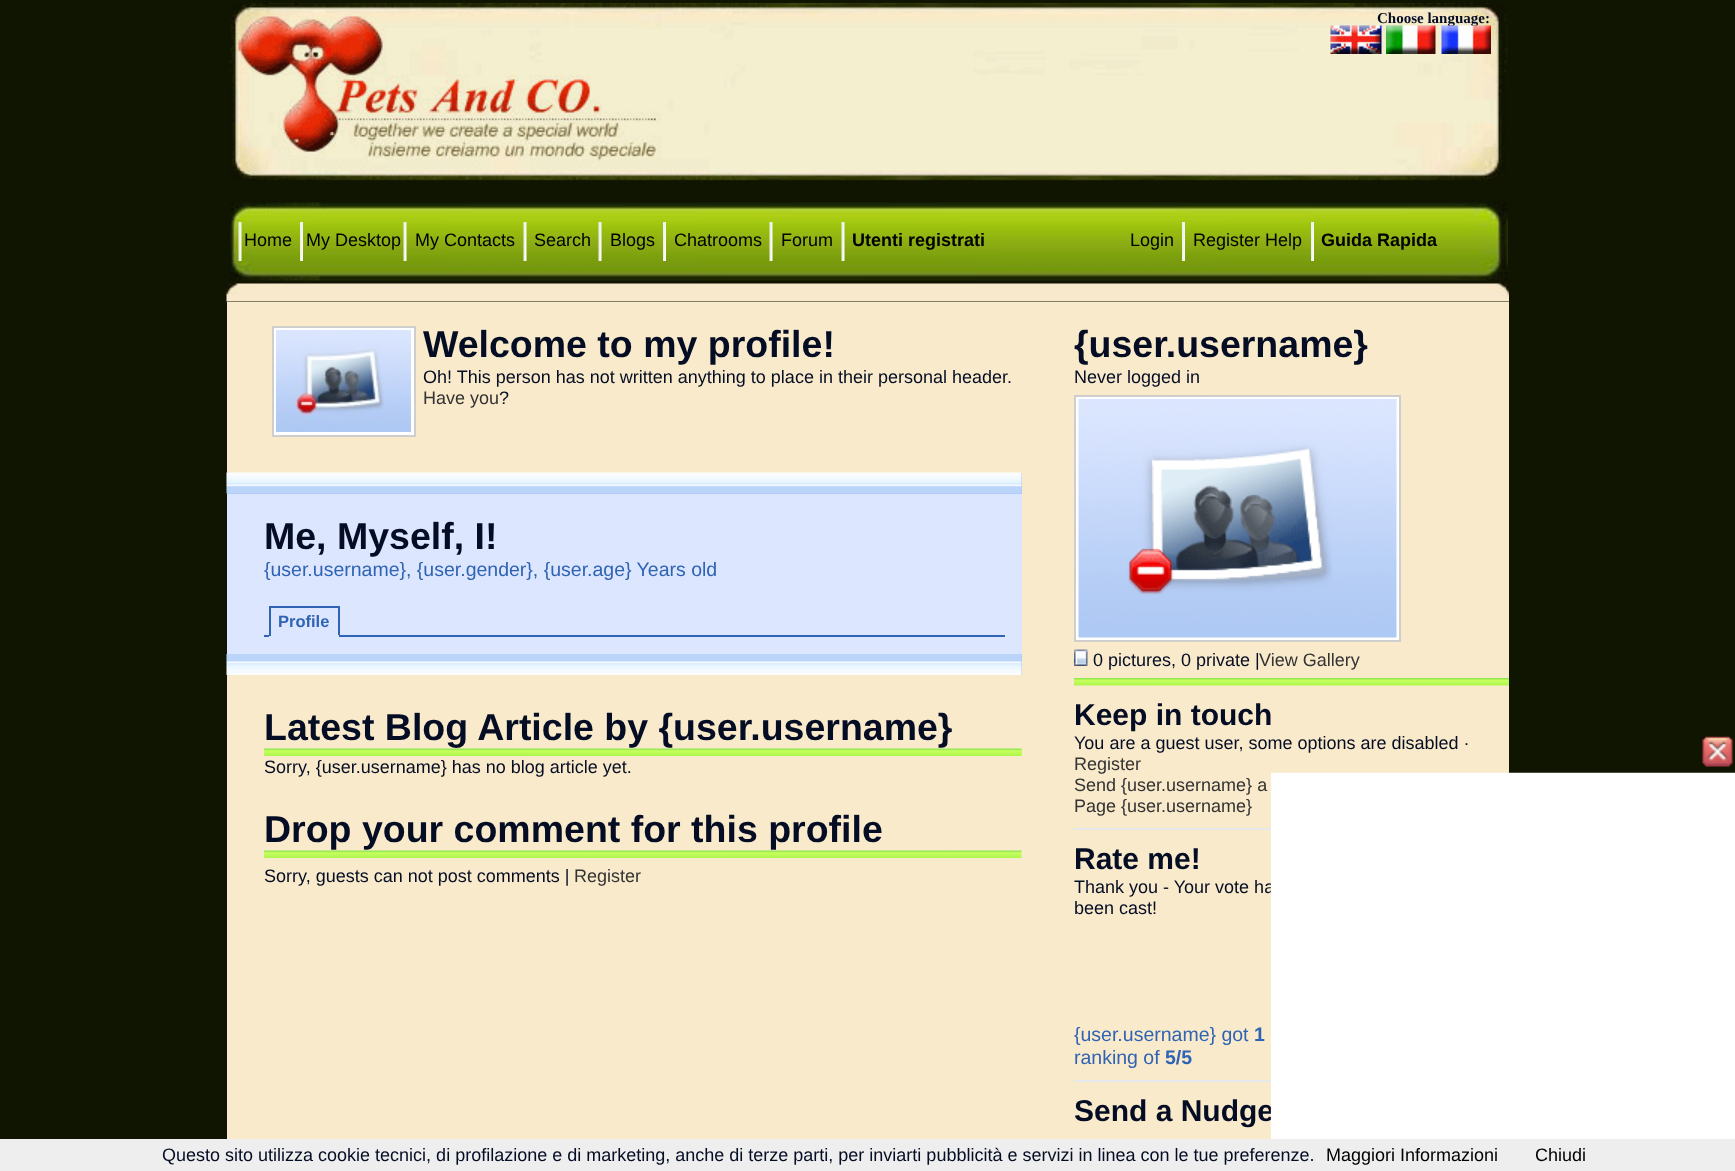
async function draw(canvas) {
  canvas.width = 1735;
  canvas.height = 1171;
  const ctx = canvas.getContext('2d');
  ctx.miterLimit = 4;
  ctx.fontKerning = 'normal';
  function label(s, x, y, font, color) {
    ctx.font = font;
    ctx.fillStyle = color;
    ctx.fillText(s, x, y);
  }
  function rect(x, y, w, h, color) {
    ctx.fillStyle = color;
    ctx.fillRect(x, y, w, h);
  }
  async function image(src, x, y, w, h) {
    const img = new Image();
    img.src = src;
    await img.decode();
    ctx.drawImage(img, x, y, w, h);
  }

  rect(0, 0, 1735, 1171, '#0f1501');
  await image('assets/img1.png', 230, 3, 1278, 178);
  label('Choose language:', 1377, 23, 'bold 15px Liberation Serif', '#050d24');
  await image('assets/img2.png', 1330, 25, 52, 29);
  await image('assets/img3.png', 1386, 25, 50, 29);
  await image('assets/img4.png', 1441, 25, 50, 29);
  await image('assets/img5.png', 230, 202, 1278, 79);
  await image('assets/img6.png', 238, 222, 4, 39);
  label('Home', 244, 246, '18px Liberation Sans', '#000');
  await image('assets/img7.png', 300, 222, 3, 39);
  label('My Desktop', 306, 246, '18px Liberation Sans', '#000');
  await image('assets/img8.png', 403, 222, 4, 39);
  label('My Contacts', 415, 246, '18px Liberation Sans', '#000');
  await image('assets/img9.png', 523, 222, 4, 39);
  label('Search', 534, 246, '18px Liberation Sans', '#000');
  await image('assets/img9.png', 598, 222, 4, 39);
  label('Blogs', 610, 246, '18px Liberation Sans', '#000');
  await image('assets/img10.png', 663, 222, 3, 39);
  label('Chatrooms', 674, 246, '18px Liberation Sans', '#000');
  await image('assets/img11.png', 769, 222, 4, 39);
  label('Forum', 781, 246, '18px Liberation Sans', '#000');
  await image('assets/img11.png', 841, 222, 4, 39);
  label('Utenti registrati', 852, 246, 'bold 18px Liberation Sans', '#000');
  label('Login', 1130, 246, '18px Liberation Sans', '#000');
  await image('assets/img7.png', 1182, 222, 3, 39);
  label('Register Help', 1193, 246, '18px Liberation Sans', '#000');
  await image('assets/img10.png', 1311, 222, 3, 39);
  label('Guida Rapida', 1321, 246, 'bold 18px Liberation Sans', '#000');
  await image('assets/img12.png', 226, 283, 1283, 19);
  rect(227, 302, 1282, 837, '#f9eacb');
  ctx.fillStyle = '#fff';
  ctx.beginPath();
  ctx.rect(273, 327, 142, 109);
  ctx.fill();
  ctx.strokeStyle = '#cecece';
  ctx.lineWidth = 2;
  ctx.stroke();
  await image('assets/img13.png', 276, 330, 135, 102);
  label('Welcome to my profile!', 423, 357, 'bold 37.5px Liberation Sans', '#050d24');
  label('Oh! This person has not written anything to place in their personal header.', 423, 383, '18px Liberation Sans', '#050d24');
  label('Have you', 423, 404, '18px Liberation Sans', '#333');
  label('?', 499, 404, '18px Liberation Sans', '#050d24');
  rect(227, 473, 795, 21, '#aec5fd');
  await image('assets/img14.png', 226, 472, 796, 22);
  rect(227, 494, 795, 21, '#dce6ff');
  rect(227, 515, 795, 75, '#dce6ff');
  label('Me, Myself, I!', 264, 549, 'bold 37.5px Liberation Sans', '#050d24');
  label('{user.username}, {user.gender}, {user.age} Years old', 264, 576, '19.5px Liberation Sans', '#2f63b3');
  rect(227, 590, 795, 64, '#dce6ff');
  rect(264, 635, 741, 2, '#2f63b3');
  label('Profile', 278, 627, 'bold 16.5px Liberation Sans', '#2f63b3');
  rect(269, 606, 70, 2, '#2f63b3');
  rect(338, 606, 2, 30, '#2f63b3');
  rect(269, 635, 70, 2, '#dce6ff');
  rect(269, 606, 2, 30, '#2f63b3');
  rect(1021, 654, 1, 21, '#aec5fd');
  await image('assets/img15.png', 226, 654, 796, 21);
  label('Latest Blog Article by {user.username}', 264, 740, 'bold 37.5px Liberation Sans', '#050d24');
  rect(1021, 749, 1, 7, '#c0ff5e');
  await image('assets/img16.png', 264, 748, 758, 8);
  label('Sorry, {user.username} has no blog article yet.', 264, 773, '18px Liberation Sans', '#050d24');
  label('Drop your comment for this profile', 264, 842, 'bold 37.5px Liberation Sans', '#050d24');
  await image('assets/img17.png', 264, 850, 758, 8);
  label('Sorry, guests can not post comments |', 264, 882, '18px Liberation Sans', '#050d24');
  label('Register', 574, 882, '18px Liberation Sans', '#333');
  label('{user.username}', 1074, 357, 'bold 37.5px Liberation Sans', '#050d24');
  label('Never logged in', 1074, 383, '18px Liberation Sans', '#050d24');
  ctx.fillStyle = '#fff';
  ctx.beginPath();
  ctx.rect(1075, 396, 325, 245);
  ctx.fill();
  ctx.stroke();
  await image('assets/img18.png', 1078, 399, 319, 239);
  await image('assets/img19.png', 1074, 649, 14, 17);
  label('0 pictures, 0 private |', 1093, 666, '18px Liberation Sans', '#050d24');
  label('View Gallery', 1259, 666, '18px Liberation Sans', '#333');
  await image('assets/img20.png', 1074, 678, 435, 8);
  label('Keep in touch', 1074, 725, 'bold 30px Liberation Sans', '#050d24');
  label('You are a guest user, some options are disabled ·', 1074, 749, '18px Liberation Sans', '#050d24');
  label('Register', 1074, 770, '18px Liberation Sans', '#333');
  label('Send {user.username} a', 1074, 791, '18px Liberation Sans', '#333');
  label('Page {user.username}', 1074, 812, '18px Liberation Sans', '#333');
  rect(1074, 828, 197, 2, '#e5e9ec');
  label('Rate me!', 1074, 869, 'bold 30px Liberation Sans', '#050d24');
  label('Thank you - Your vote ha', 1074, 893, '18px Liberation Sans', '#050d24');
  label('been cast!', 1074, 914, '18px Liberation Sans', '#050d24');
  label('{user.username} got', 1074, 1041, '19.5px Liberation Sans', '#2f63b3');
  label('1', 1254, 1041, 'bold 19.5px Liberation Sans', '#2f63b3');
  label('ranking of', 1074, 1064, '19.5px Liberation Sans', '#2f63b3');
  label('5/5', 1165, 1064, 'bold 19.5px Liberation Sans', '#2f63b3');
  rect(1074, 1080, 197, 2, '#e5e9ec');
  label('Send a Nudge', 1074, 1121, 'bold 30px Liberation Sans', '#050d24');
  await image('assets/img21.png', 1270, 736, 465, 403);
  rect(0, 1139, 1735, 32, '#eee');
  label('Questo sito utilizza cookie tecnici, di profilazione e di marketing, anche di terze parti, per inviarti pubblicità e servizi in linea con le tue preferenze.', 162, 1161, '18px Liberation Sans', '#050d24');
  label('Maggiori Informazioni', 1326, 1161, '18px Liberation Sans', '#000');
  label('Chiudi', 1535, 1161, '18px Liberation Sans', '#000');
}

draw(document.querySelector('canvas'));
